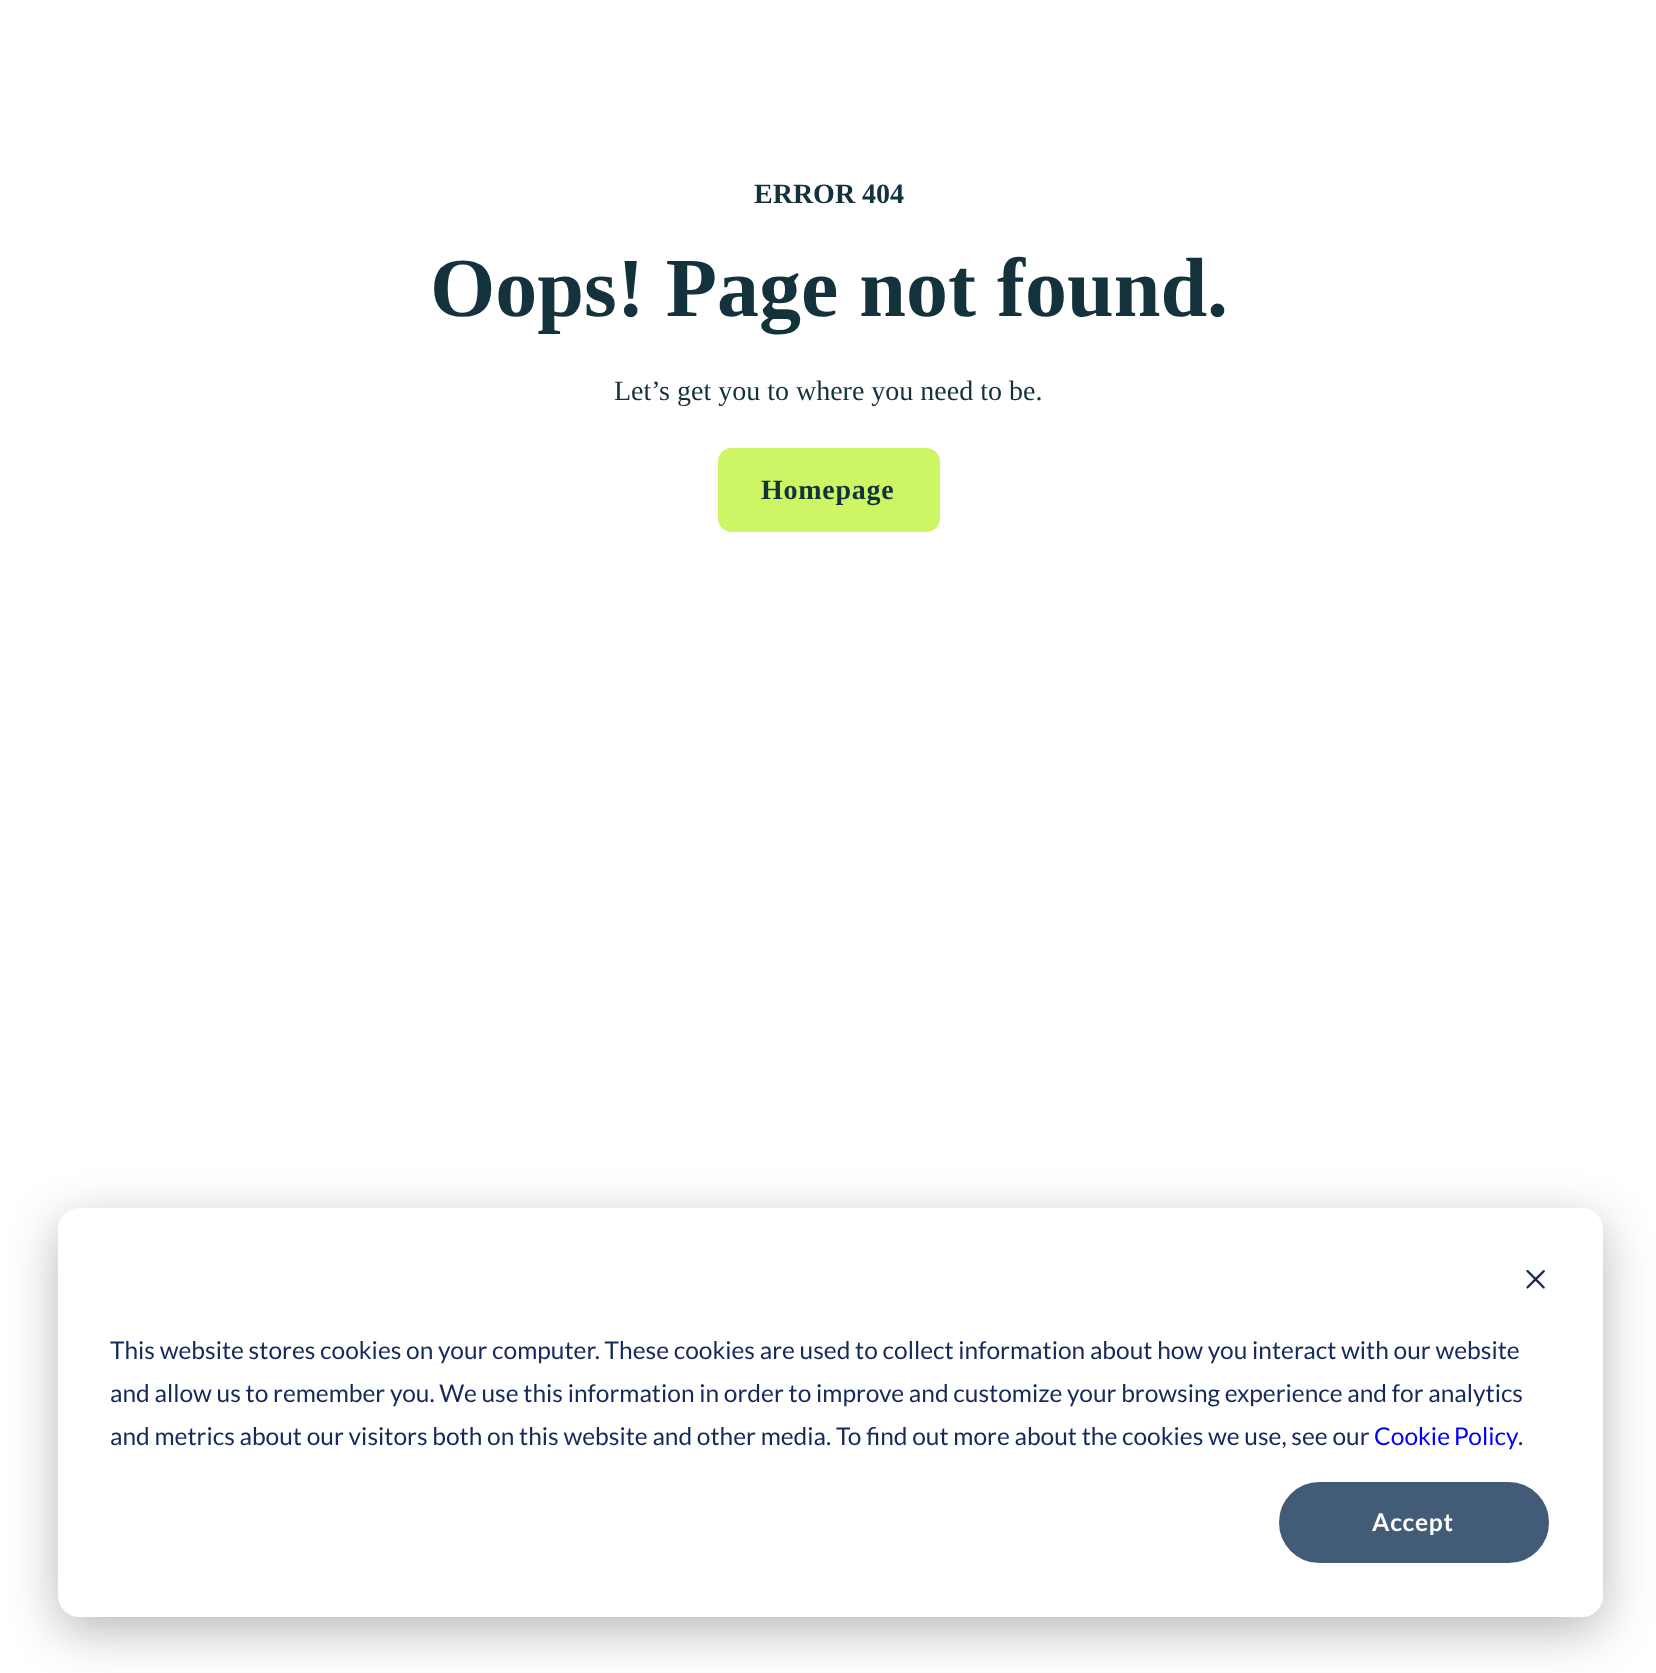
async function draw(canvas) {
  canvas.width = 1656;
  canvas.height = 1673;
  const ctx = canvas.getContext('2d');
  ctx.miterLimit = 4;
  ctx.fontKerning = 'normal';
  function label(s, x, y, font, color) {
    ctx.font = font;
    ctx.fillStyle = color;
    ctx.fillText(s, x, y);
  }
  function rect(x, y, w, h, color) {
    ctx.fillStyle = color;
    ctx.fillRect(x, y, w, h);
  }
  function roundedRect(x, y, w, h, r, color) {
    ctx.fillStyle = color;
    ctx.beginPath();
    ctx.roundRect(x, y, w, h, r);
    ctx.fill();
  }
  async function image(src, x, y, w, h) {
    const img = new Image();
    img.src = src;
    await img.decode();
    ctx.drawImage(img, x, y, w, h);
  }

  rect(0, 0, 1656, 1673, '#fff');
  label('ERROR 404', 754, 203, 'bold 28px Liberation Serif', '#14323c');
  label('Oops! Page not found.', 430, 316, 'bold 84px Liberation Serif', '#14323c');
  label('Let’s get you to where you need to be.', 614, 400, '28px Liberation Serif', '#14323c');
  roundedRect(718, 448, 222, 84, 14, '#cdf564');
  ctx.letterSpacing = '0.75px';
  label('Homepage', 761, 499, 'bold 28px Liberation Serif', '#14323c');
  ctx.fillStyle = '#00000047';
  ctx.filter = 'blur(24.5px)';
  ctx.beginPath();
  ctx.roundRect(58, 1222, 1545, 409, 21);
  ctx.fill();
  ctx.filter = 'none';
  roundedRect(58, 1208, 1545, 409, 21, '#fff');
  await image('assets/img1.png', 1526, 1269, 19, 20);
  ctx.letterSpacing = '0px';
  label('This website stores cookies on your computer. These cookies are used to collect information about how you interact with our website', 110, 1359, '24.5px Lato', '#15295a');
  label('and allow us to remember you. We use this information in order to improve and customize your browsing experience and for analytics', 110, 1402, '24.5px Lato', '#15295a');
  label('and metrics about our visitors both on this website and other media. To find out more about the cookies we use, see our', 110, 1445, '24.5px Lato', '#15295a');
  ctx.wordSpacing = '-1px';
  label('Cookie Policy', 1374, 1445, '24.5px Lato', '#00f');
  ctx.wordSpacing = '0px';
  label('.', 1518, 1445, '24.5px Lato', '#15295a');
  ctx.fillStyle = '#425b76';
  ctx.beginPath();
  ctx.roundRect(1280, 1483, 268, 79, 39.5);
  ctx.fill();
  ctx.strokeStyle = '#425b76';
  ctx.lineWidth = 2;
  ctx.stroke();
  ctx.letterSpacing = '0.75px';
  label('Accept', 1372, 1531, 'bold 24.5px Lato', '#fff');
}

draw(document.querySelector('canvas'));
